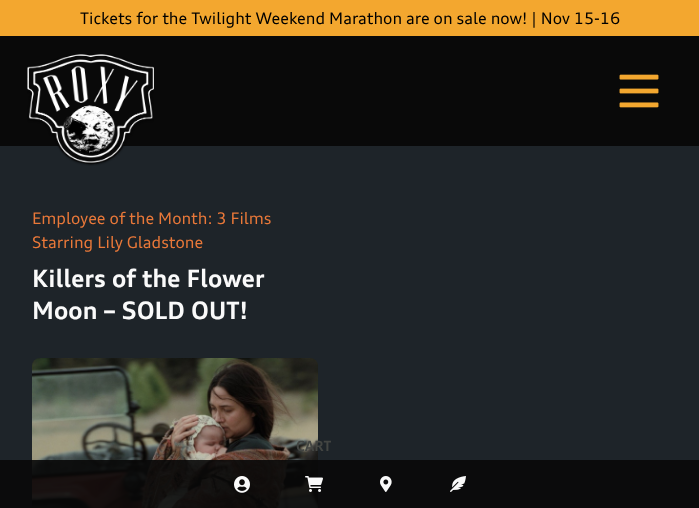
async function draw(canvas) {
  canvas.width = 699;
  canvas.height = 508;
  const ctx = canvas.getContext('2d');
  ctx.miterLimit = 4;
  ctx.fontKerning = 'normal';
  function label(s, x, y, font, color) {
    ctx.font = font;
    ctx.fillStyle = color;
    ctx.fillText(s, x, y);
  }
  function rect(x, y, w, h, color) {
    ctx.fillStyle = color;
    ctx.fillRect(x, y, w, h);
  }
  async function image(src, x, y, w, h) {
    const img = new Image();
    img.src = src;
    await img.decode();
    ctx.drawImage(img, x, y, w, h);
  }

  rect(0, 0, 699, 508, '#1e2429');
  rect(0, 0, 699, 36, '#f3a72f');
  label('Tickets for the Twilight Weekend Marathon are on sale now! | Nov 15-16', 80, 24, '16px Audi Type', '#000');
  rect(0, 36, 699, 110, '#090909');
  await image('assets/img1.png', 27, 54, 127, 112);
  await image('assets/img2.png', 619, 74, 40, 34);
  label('Employee of the Month: 3 Films', 32, 224, '16px Audi Type', '#e97839');
  label('Starring Lily Gladstone', 32, 248, '16px Audi Type', '#e97839');
  label('Killers of the Flower', 32, 287, 'bold 24px Audi Type', '#fafafa');
  label('Moon – SOLD OUT!', 32, 319, 'bold 24px Audi Type', '#fafafa');
  await image('assets/img3.png', 32, 358, 286, 150);
  rect(0, 460, 699, 48, '#090909e6');
  label('CART', 296, 451, 'bold 14px Audi Type', '#434542');
  await image('assets/img4.png', 305, 476, 18, 16);
  await image('assets/img5.png', 234, 476, 16, 17);
  await image('assets/img6.png', 380, 476, 12, 16);
  await image('assets/img7.png', 450, 476, 16, 16);
}

draw(document.querySelector('canvas'));
